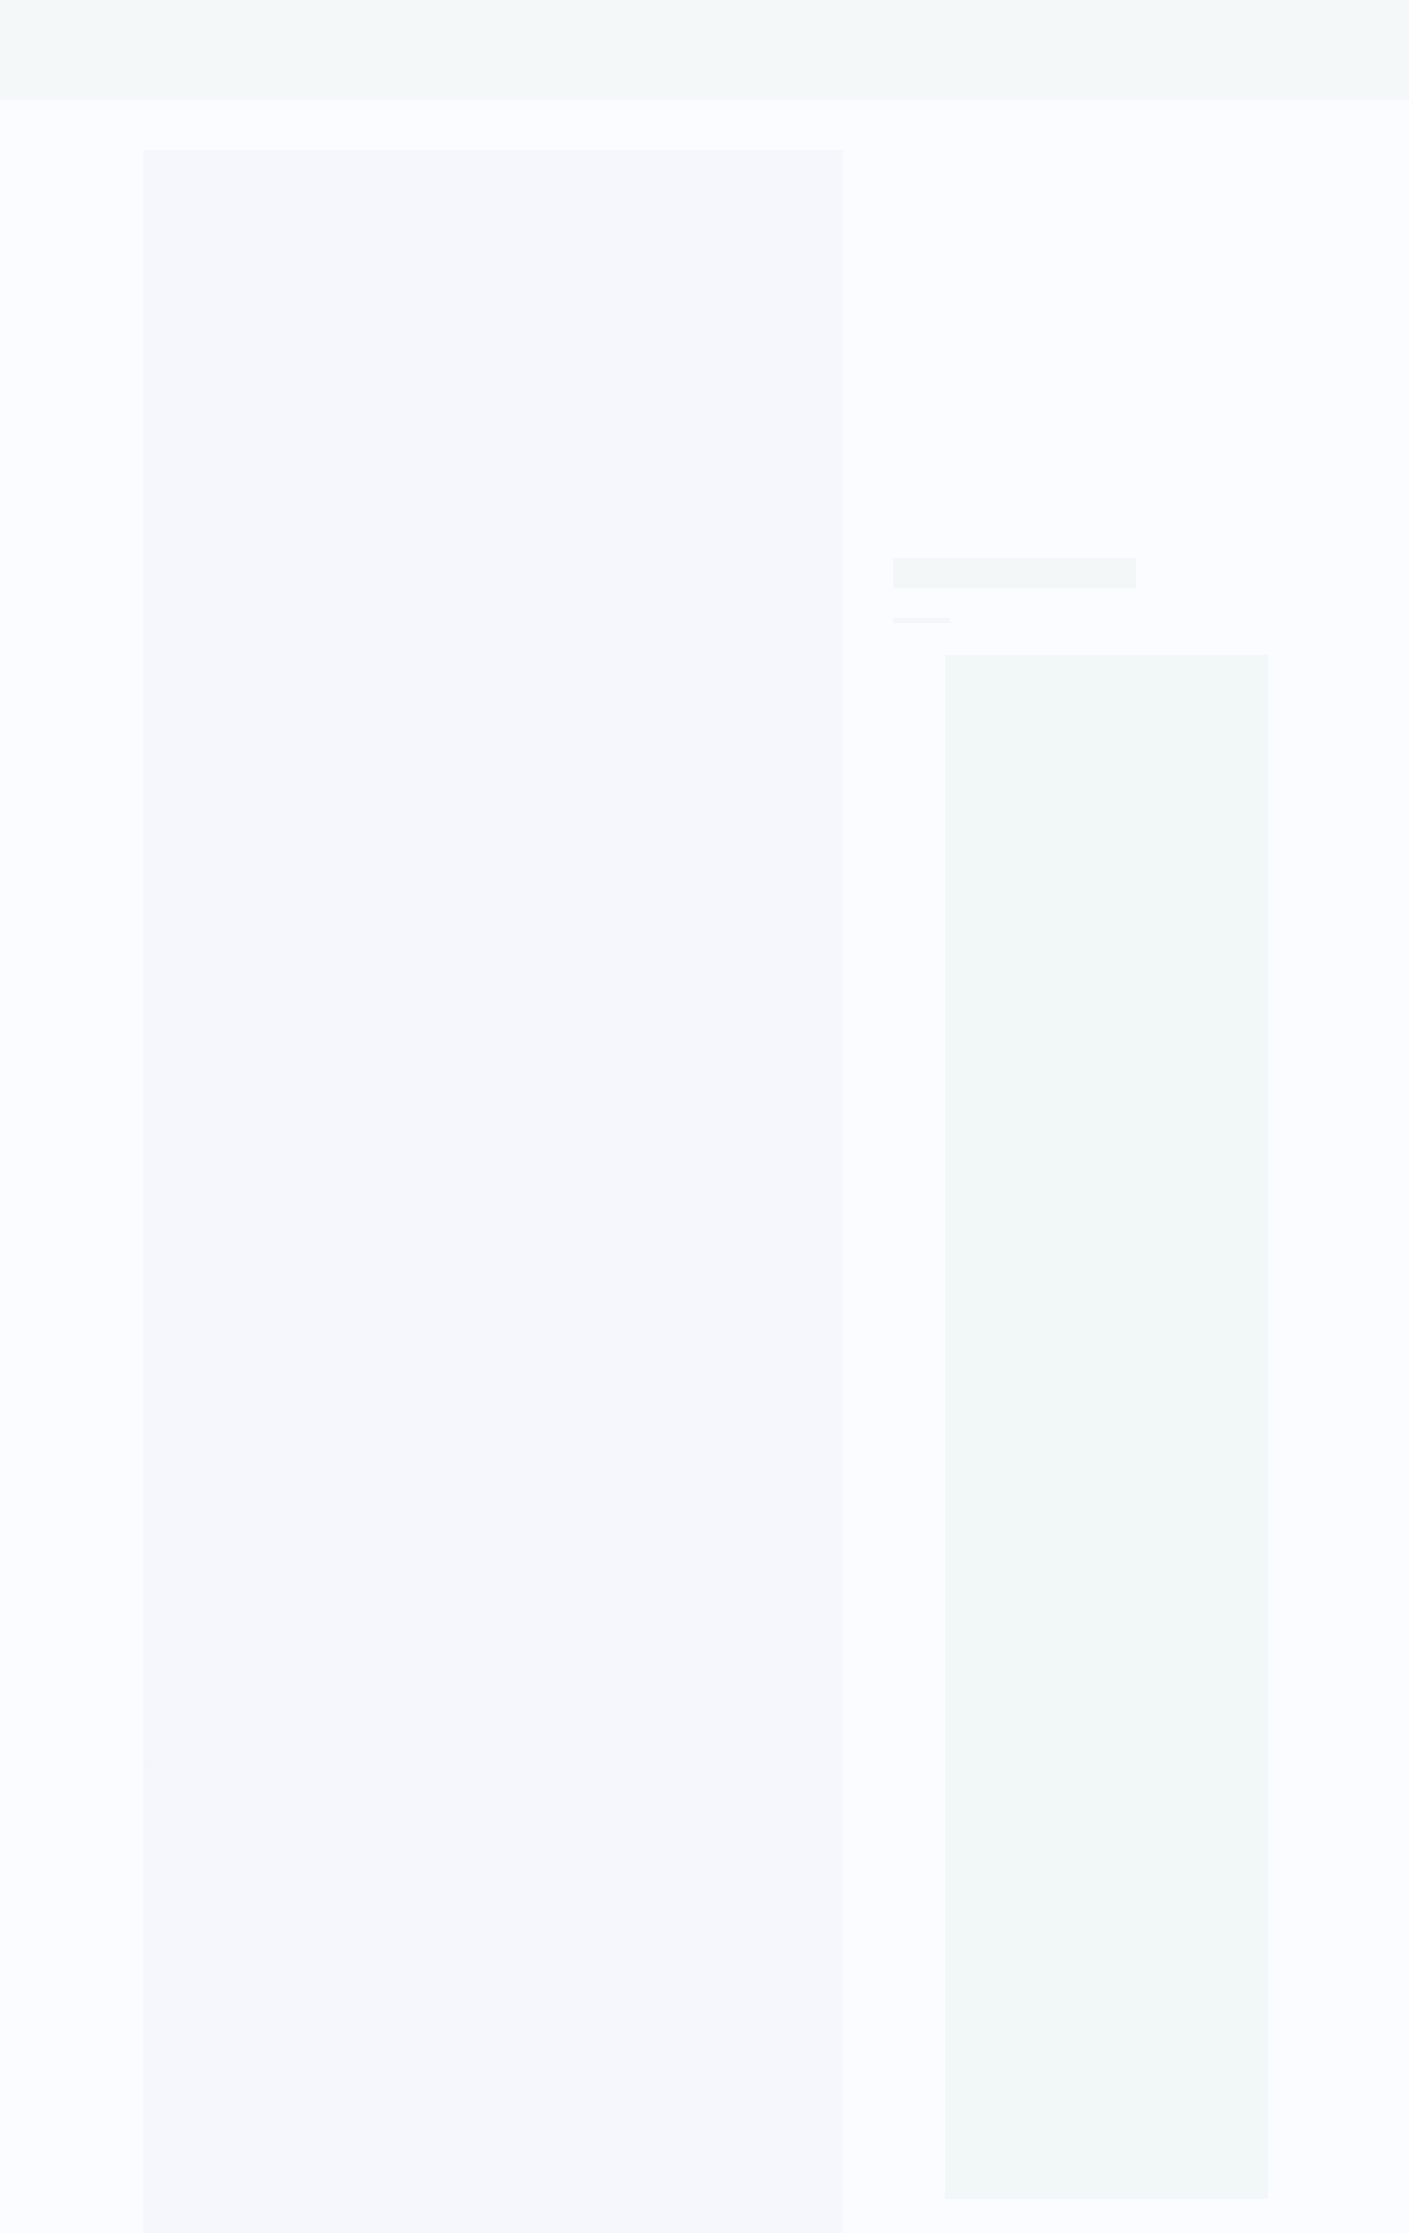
async function draw(canvas) {
  canvas.width = 1409;
  canvas.height = 2233;
  const ctx = canvas.getContext('2d');
  ctx.miterLimit = 4;
  ctx.fontKerning = 'normal';
  function rect(x, y, w, h, color) {
    ctx.fillStyle = color;
    ctx.fillRect(x, y, w, h);
  }
  function roundedRect(x, y, w, h, r, color) {
    ctx.fillStyle = color;
    ctx.beginPath();
    ctx.roundRect(x, y, w, h, r);
    ctx.fill();
  }

  rect(0, 0, 1409, 2233, '#fbfcff');
  rect(0, 0, 1409, 100, '#f4f8f8');
  rect(143, 150, 700, 2083, '#f5f7fd');
  roundedRect(146, 1695, 7, 6, 3, '#f4f7f8');
  roundedRect(146, 1760, 7, 6, 3, '#f4f7f8');
  roundedRect(146, 1795, 7, 6, 3, '#f4f7f8');
  roundedRect(146, 1830, 7, 6, 3, '#f4f7f8');
  roundedRect(146, 1925, 7, 6, 3, '#f4f7f8');
  rect(893, 558, 243, 30, '#f4f7f8');
  rect(893, 618, 57, 5, '#f4f7f8');
  rect(945, 655, 323, 1544, '#f2f8f8');
}

draw(document.querySelector('canvas'));
